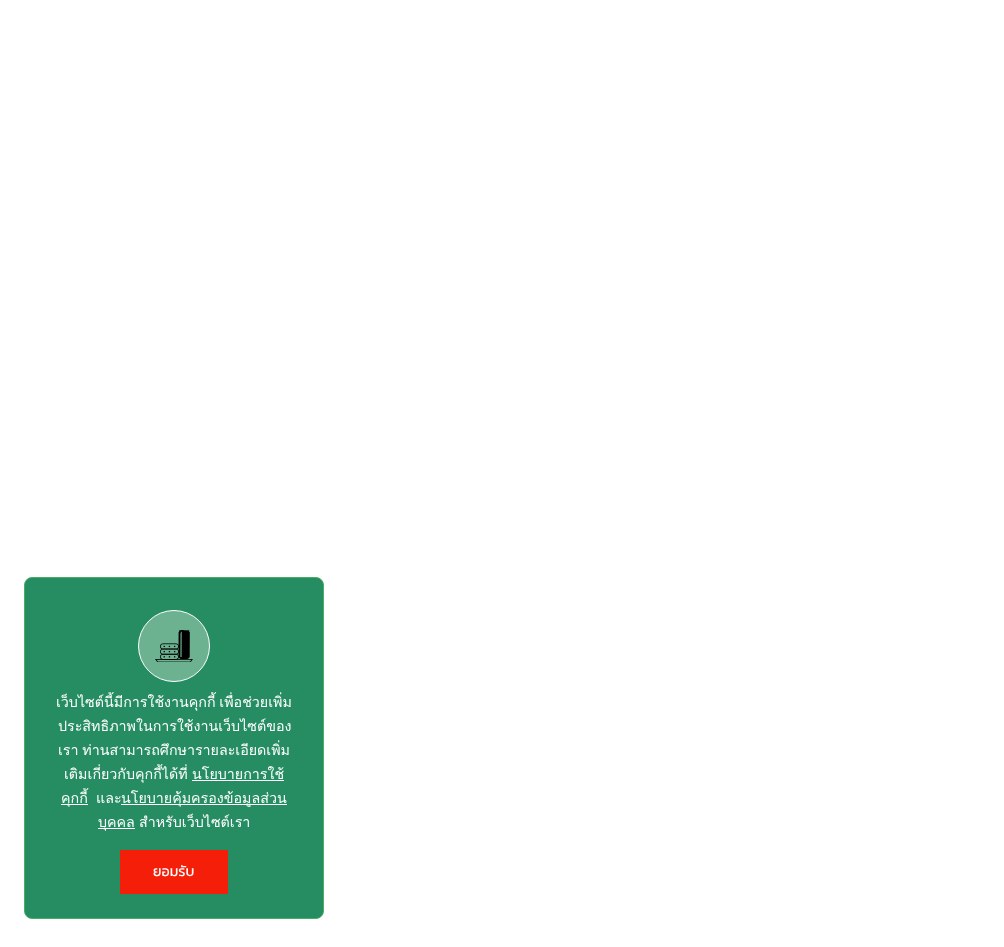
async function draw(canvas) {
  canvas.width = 1004;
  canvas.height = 947;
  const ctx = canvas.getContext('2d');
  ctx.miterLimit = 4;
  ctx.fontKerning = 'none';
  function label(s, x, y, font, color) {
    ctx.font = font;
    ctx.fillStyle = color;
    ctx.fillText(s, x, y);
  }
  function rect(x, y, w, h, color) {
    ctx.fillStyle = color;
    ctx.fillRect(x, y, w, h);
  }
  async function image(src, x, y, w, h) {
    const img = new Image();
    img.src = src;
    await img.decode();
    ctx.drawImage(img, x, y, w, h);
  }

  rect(0, 0, 1004, 947, '#fff');
  ctx.fillStyle = '#268d63';
  ctx.beginPath();
  ctx.roundRect(24.5, 577.5, 299, 341, 7.5);
  ctx.fill();
  ctx.strokeStyle = '#49ad65';
  ctx.stroke();
  ctx.fillStyle = '#6cb291';
  ctx.beginPath();
  ctx.arc(174, 646, 35.5, 0, 2 * Math.PI);
  ctx.fill();
  ctx.strokeStyle = '#fff';
  ctx.stroke();
  await image('assets/img1.png', 155, 630, 38, 32);
  ctx.wordSpacing = '-1px';
  label('เว็บไซต์นี้มีการใช้งานคุกกี้ เพื่อช่วยเพิ่ม', 56, 707, '14.25px Loma', '#fff');
  ctx.wordSpacing = '0px';
  label('ประสิทธิภาพในการใช้งานเว็บไซต์ของ', 58, 731, '14.25px Loma', '#fff');
  ctx.wordSpacing = '-1px';
  label('เรา ท่านสามารถศึกษารายละเอียดเพิ่ม', 58, 755, '14.25px Loma', '#fff');
  ctx.wordSpacing = '0px';
  label('เติมเกี่ยวกับคุกกี้ได้ที่', 64, 779, '14.25px Loma', '#fff');
  label('นโยบายการใช้', 192, 779, '14.25px Loma', '#fff');
  rect(192, 780, 92, 1, '#fff');
  rect(61, 804, 27, 1, '#fff');
  label('คุกกี้', 61, 803, '14.25px Loma', '#fff');
  label('และ', 96, 803, '14.25px Loma', '#fff');
  rect(121, 804, 166, 1, '#fff');
  label('นโยบายคุ้มครองข้อมูลส่วน', 121, 803, '14.25px Loma', '#fff');
  rect(98, 828, 37, 1, '#fff');
  label('บุคคล', 98, 827, '14.25px Loma', '#fff');
  label('สำหรับเว็บไซต์เรา', 139, 827, '14.25px Loma', '#fff');
  rect(120, 850, 108, 44, '#f41e09');
  label('ยอมรับ', 153, 876, '14.25px Kanit', '#fff');
}

draw(document.querySelector('canvas'));
